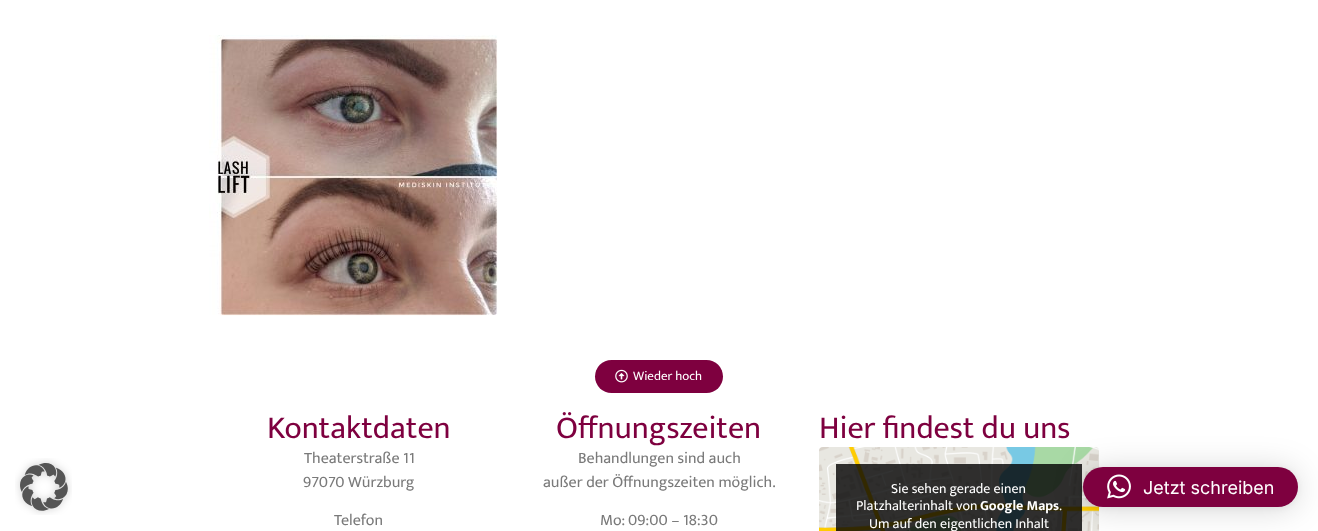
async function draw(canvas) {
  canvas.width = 1318;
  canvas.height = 531;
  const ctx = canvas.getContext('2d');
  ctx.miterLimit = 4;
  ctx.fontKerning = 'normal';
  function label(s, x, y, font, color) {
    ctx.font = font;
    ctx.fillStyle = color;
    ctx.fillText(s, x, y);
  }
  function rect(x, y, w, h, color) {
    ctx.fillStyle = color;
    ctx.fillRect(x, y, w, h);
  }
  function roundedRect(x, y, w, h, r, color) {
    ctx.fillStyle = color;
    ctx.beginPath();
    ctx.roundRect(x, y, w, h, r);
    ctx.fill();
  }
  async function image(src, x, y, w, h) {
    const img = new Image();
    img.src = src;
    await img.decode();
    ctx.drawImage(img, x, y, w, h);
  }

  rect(0, 0, 1318, 531, '#fff');
  await image('assets/img1.png', 209, 35, 289, 281);
  await image('assets/img2.png', 15, 458, 57, 57);
  roundedRect(595, 360, 128, 33, 16.5, '#7e003f');
  await image('assets/img3.png', 615, 369, 13, 14);
  label('Wieder hoch', 633, 380, '13px Mukta Vaani', '#fff');
  label('Kontaktdaten', 267, 438, '32px Mukta Vaani', '#7e003f');
  label('Theaterstraße 11', 304, 463, '16px Mukta Vaani', '#7a7a7a');
  label('97070 Würzburg', 303, 487, '16px Mukta Vaani', '#7a7a7a');
  label('Telefon', 334, 525, '16px Mukta Vaani', '#7a7a7a');
  label('Öffnungszeiten', 556, 438, '32px Mukta Vaani', '#7e003f');
  label('Behandlungen sind auch', 578, 463, '16px Mukta Vaani', '#7a7a7a');
  label('außer der Öffnungszeiten möglich.', 543, 487, '16px Mukta Vaani', '#7a7a7a');
  label('Mo: 09:00 – 18:30', 600, 525, '16px Mukta Vaani', '#7a7a7a');
  label('Hier findest du uns', 819, 438, '32px Mukta Vaani', '#7e003f');
  await image('assets/img4.png', 819, 447, 280, 84);
  rect(836, 464, 246, 67, '#000000cc');
  label('Sie sehen gerade einen', 891, 493, '14px Mukta Vaani', '#fff');
  label('Platzhalterinhalt von', 856, 510, '14px Mukta Vaani', '#fff');
  label('Google Maps', 980, 510, 'bold 14px Mukta Vaani', '#fff');
  label('.', 1059, 510, '14px Mukta Vaani', '#fff');
  label('Um auf den eigentlichen Inhalt', 869, 528, '14px Mukta Vaani', '#fff');
  ctx.fillStyle = '#00000029';
  ctx.filter = 'blur(16px)';
  ctx.beginPath();
  ctx.roundRect(1083, 469, 215, 40, 20);
  ctx.fill();
  ctx.filter = 'none';
  ctx.fillStyle = '#0000000f';
  ctx.filter = 'blur(3px)';
  ctx.beginPath();
  ctx.roundRect(1083, 468, 215, 40, 20);
  ctx.fill();
  ctx.filter = 'none';
  roundedRect(1083, 467, 215, 40, 20, '#7e003f');
  await image('assets/img5.png', 1107, 474, 24, 25);
  label('Jetzt schreiben', 1143, 494, '18px Inter', '#fff');
}

draw(document.querySelector('canvas'));
